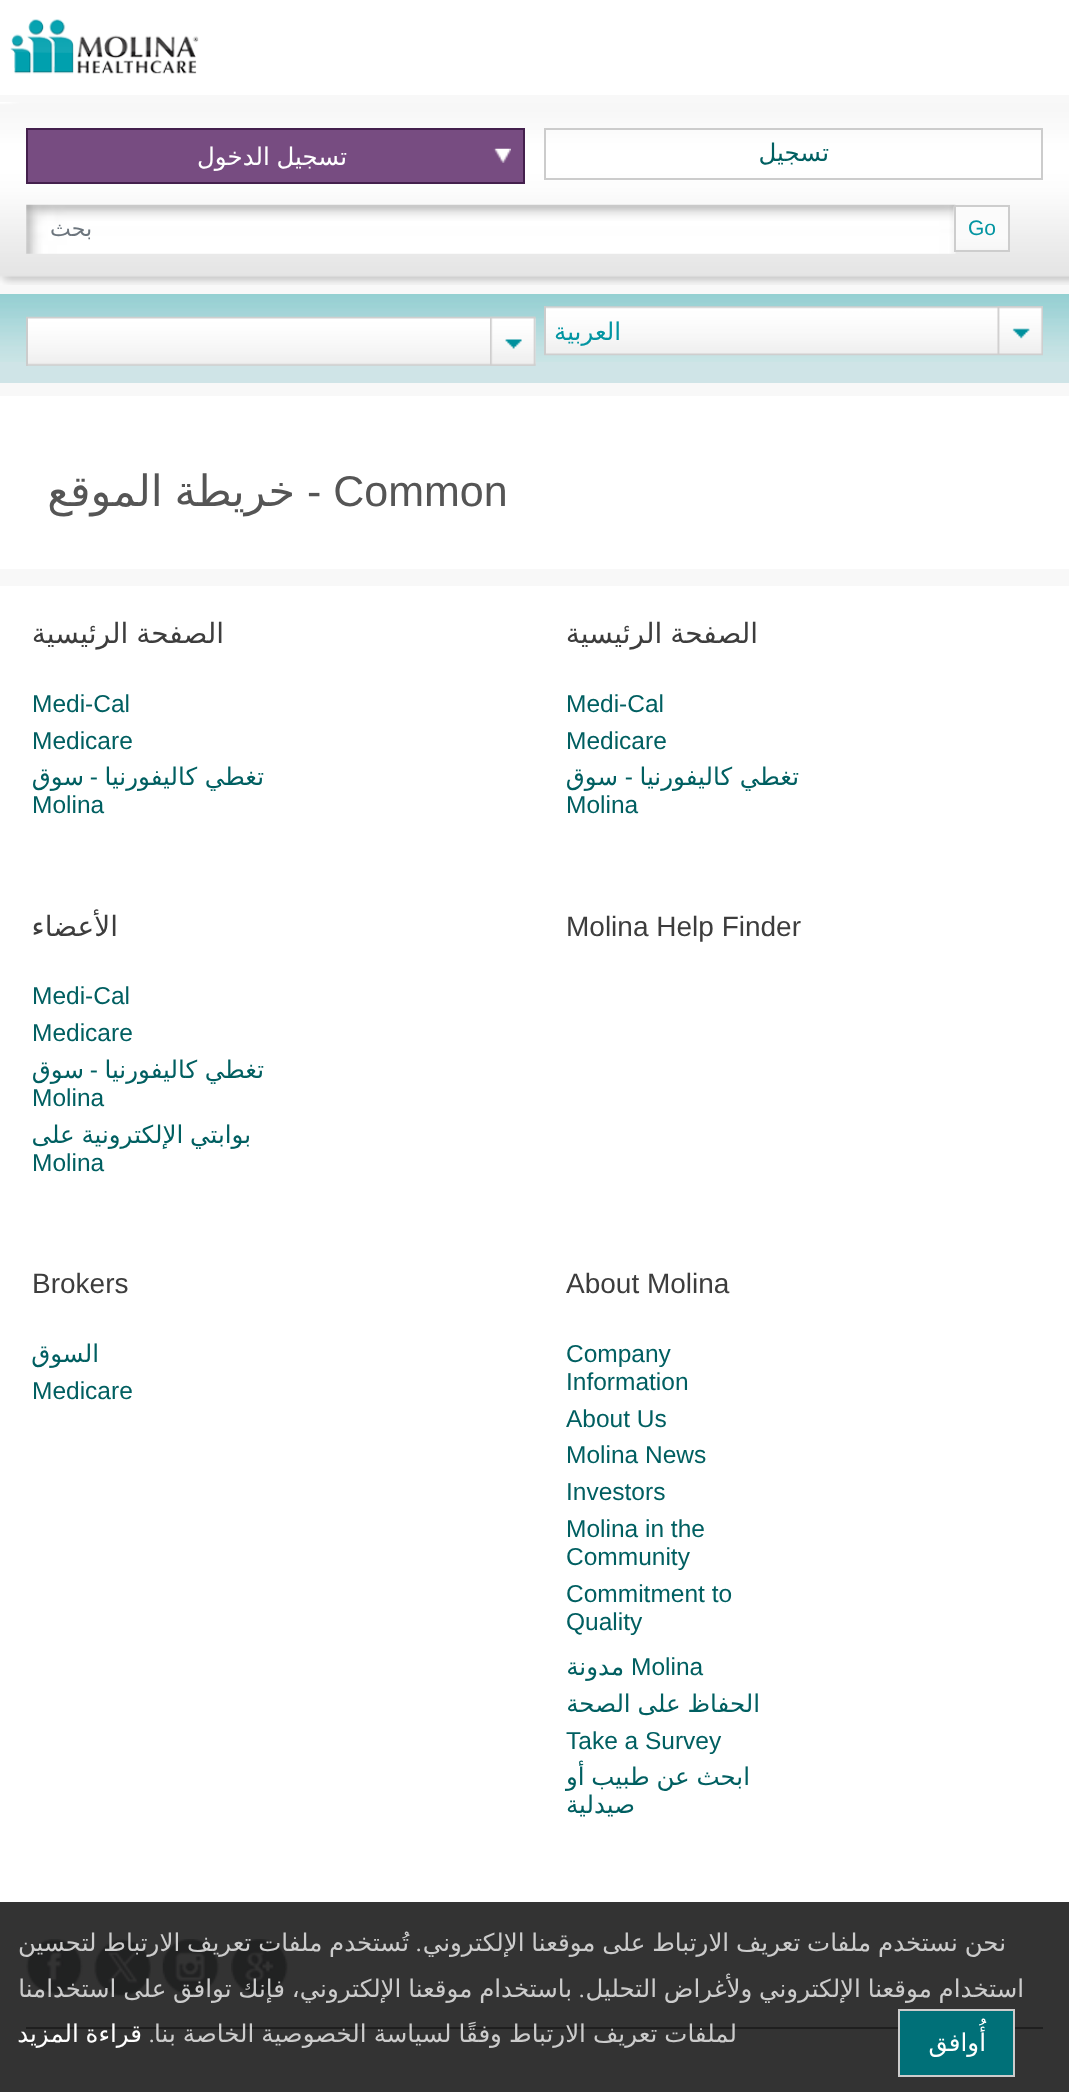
async function draw(canvas) {
  canvas.width = 1069;
  canvas.height = 2092;
  const ctx = canvas.getContext('2d');
  ctx.miterLimit = 4;
  ctx.fontKerning = 'normal';
  function label(s, x, y, font, color) {
    ctx.font = font;
    ctx.fillStyle = color;
    ctx.fillText(s, x, y);
  }
  function rect(x, y, w, h, color) {
    ctx.fillStyle = color;
    ctx.fillRect(x, y, w, h);
  }
  async function image(src, x, y, w, h) {
    const img = new Image();
    img.src = src;
    await img.decode();
    ctx.drawImage(img, x, y, w, h);
  }

  rect(0, 0, 1069, 2092, '#f8f8f8');
  rect(0, 0, 1069, 95, '#fff');
  await image('assets/img1.png', 10, 19, 189, 55);
  rect(0, 102, 1069, 183, '#fff');
  await image('assets/img2.png', 0, 102, 1069, 183);
  ctx.strokeStyle = '#ccc';
  ctx.lineWidth = 2;
  ctx.strokeRect(545, 129, 497, 50);
  ctx.direction = 'rtl';
  label('تسجيل', 829, 161, '24.5px DejaVu Sans', '#005f61');
  ctx.fillStyle = '#774c81';
  ctx.beginPath();
  ctx.rect(27, 129, 497, 54);
  ctx.fill();
  ctx.strokeStyle = '#44204d';
  ctx.stroke();
  await image('assets/img3.png', 493, 148, 18, 15);
  ctx.wordSpacing = '-1px';
  label('تسجيل الدخول', 347, 165, '24.5px DejaVu Sans', '#fff');
  await image('assets/img5.png', 26, 204, 930, 50);
  await image('assets/img4.png', 953, 206, 55, 46);
  ctx.strokeStyle = '#cdcdcd';
  ctx.strokeRect(955, 206, 54, 45);
  ctx.wordSpacing = '0px';
  ctx.direction = 'ltr';
  label('Go', 968, 235, '21px Liberation Sans', '#0395a2');
  ctx.direction = 'rtl';
  label('بحث', 92, 236, '22px DejaVu Sans', '#6c757d');
  rect(0, 362, 1069, 21, '#cfe4e7');
  await image('assets/img6.png', 0, 294, 1069, 68);
  await image('assets/img7.png', 544, 306, 499, 50);
  rect(544, 306, 2, 49, '#ccc');
  await image('assets/img8.png', 997, 306, 46, 48);
  label('العربية', 621, 340, '24.5px DejaVu Sans', '#0395a2');
  await image('assets/img9.png', 26, 316, 510, 50);
  rect(26, 317, 2, 49, '#ccc');
  await image('assets/img10.png', 490, 316, 46, 50);
  rect(0, 396, 1069, 173, '#fff');
  ctx.direction = 'ltr';
  label('- Common', 307, 506, '43px Liberation Sans', '#555');
  ctx.wordSpacing = '-2px';
  ctx.direction = 'rtl';
  label('خريطة الموقع', 295, 506, '43px DejaVu Sans', '#555');
  rect(0, 586, 1069, 1316, '#fff');
  rect(0, 1902, 1069, 190, '#333');
  ctx.wordSpacing = '-1px';
  label('الصفحة الرئيسية', 758, 643, '28px DejaVu Sans', '#3d3d3d');
  ctx.wordSpacing = '0px';
  ctx.direction = 'ltr';
  label('Medi-Cal', 566, 712, '24.5px Liberation Sans', '#005f61');
  label('Medicare', 566, 749, '24.5px Liberation Sans', '#005f61');
  ctx.direction = 'rtl';
  label('تغطي كاليفورنيا', 799, 785, '24.5px DejaVu Sans', '#005f61');
  label('-', 633, 785, '24.5px Liberation Sans', '#005f61');
  label('سوق', 618, 785, '24.5px DejaVu Sans', '#005f61');
  ctx.direction = 'ltr';
  label('Molina', 566, 813, '24.5px Liberation Sans', '#005f61');
  ctx.wordSpacing = '-1px';
  ctx.direction = 'rtl';
  label('الصفحة الرئيسية', 224, 643, '28px DejaVu Sans', '#3d3d3d');
  ctx.wordSpacing = '0px';
  ctx.direction = 'ltr';
  label('Medi-Cal', 32, 712, '24.5px Liberation Sans', '#005f61');
  label('Medicare', 32, 749, '24.5px Liberation Sans', '#005f61');
  ctx.direction = 'rtl';
  label('تغطي كاليفورنيا', 264, 785, '24.5px DejaVu Sans', '#005f61');
  label('-', 98, 785, '24.5px Liberation Sans', '#005f61');
  label('سوق', 84, 785, '24.5px DejaVu Sans', '#005f61');
  ctx.direction = 'ltr';
  label('Molina', 32, 813, '24.5px Liberation Sans', '#005f61');
  label('Molina Help Finder', 566, 936, '28px Liberation Sans', '#3d3d3d');
  ctx.direction = 'rtl';
  label('الأعضاء', 118, 936, '28px DejaVu Sans', '#3d3d3d');
  ctx.direction = 'ltr';
  label('Medi-Cal', 32, 1004, '24.5px Liberation Sans', '#005f61');
  label('Medicare', 32, 1041, '24.5px Liberation Sans', '#005f61');
  ctx.direction = 'rtl';
  label('تغطي كاليفورنيا', 264, 1078, '24.5px DejaVu Sans', '#005f61');
  label('-', 98, 1078, '24.5px Liberation Sans', '#005f61');
  label('سوق', 84, 1078, '24.5px DejaVu Sans', '#005f61');
  ctx.direction = 'ltr';
  label('Molina', 32, 1106, '24.5px Liberation Sans', '#005f61');
  ctx.wordSpacing = '-1px';
  ctx.direction = 'rtl';
  label('بوابتي الإلكترونية على', 251, 1143, '24.5px DejaVu Sans', '#005f61');
  ctx.wordSpacing = '0px';
  ctx.direction = 'ltr';
  label('Molina', 32, 1171, '24.5px Liberation Sans', '#005f61');
  label('About Molina', 566, 1293, '28px Liberation Sans', '#3d3d3d');
  label('Company', 566, 1362, '24.5px Liberation Sans', '#005f61');
  label('Information', 566, 1390, '24.5px Liberation Sans', '#005f61');
  label('About Us', 566, 1427, '24.5px Liberation Sans', '#005f61');
  label('Molina News', 566, 1463, '24.5px Liberation Sans', '#005f61');
  label('Investors', 566, 1500, '24.5px Liberation Sans', '#005f61');
  label('Molina in the', 566, 1537, '24.5px Liberation Sans', '#005f61');
  label('Community', 566, 1565, '24.5px Liberation Sans', '#005f61');
  label('Commitment to', 566, 1602, '24.5px Liberation Sans', '#005f61');
  label('Quality', 566, 1630, '24.5px Liberation Sans', '#005f61');
  label('Molina', 631, 1675, '24.5px Liberation Sans', '#005f61');
  ctx.direction = 'rtl';
  label('مدونة', 624, 1675, '24.5px DejaVu Sans', '#005f61');
  ctx.wordSpacing = '-1px';
  label('الحفاظ على الصحة', 760, 1712, '24.5px DejaVu Sans', '#005f61');
  ctx.wordSpacing = '0px';
  ctx.direction = 'ltr';
  label('Take a Survey', 566, 1749, '24.5px Liberation Sans', '#005f61');
  ctx.wordSpacing = '-1px';
  ctx.direction = 'rtl';
  label('ابحث عن طبيب أو', 750, 1785, '24.5px DejaVu Sans', '#005f61');
  ctx.wordSpacing = '0px';
  label('صيدلية', 635, 1813, '24.5px DejaVu Sans', '#005f61');
  ctx.direction = 'ltr';
  label('Brokers', 32, 1293, '28px Liberation Sans', '#3d3d3d');
  ctx.direction = 'rtl';
  label('السوق', 99, 1362, '24.5px DejaVu Sans', '#005f61');
  ctx.direction = 'ltr';
  label('Medicare', 32, 1399, '24.5px Liberation Sans', '#005f61');
  rect(26, 2027, 1017, 2, '#1f1f1f');
  await image('assets/img11.png', 231, 1939, 57, 57);
  await image('assets/img12.png', 162, 1939, 58, 57);
  await image('assets/img13.png', 94, 1939, 57, 58);
  await image('assets/img14.png', 26, 1939, 57, 55);
  ctx.wordSpacing = '-1px';
  ctx.direction = 'rtl';
  label('نحن نستخدم ملفات تعريف الارتباط على موقعنا الإلكتروني', 1006, 1951, '24.5px DejaVu Sans', '#ccc');
  ctx.wordSpacing = '0px';
  label('.', 422, 1951, '24.5px Optima', '#ccc');
  ctx.wordSpacing = '-1px';
  label('تُستخدم ملفات تعريف الارتباط لتحسين', 409, 1951, '24.5px DejaVu Sans', '#ccc');
  label('استخدام موقعنا الإلكتروني ولأغراض التحليل', 1024, 1997, '24.5px DejaVu Sans', '#ccc');
  ctx.wordSpacing = '0px';
  label('.', 585, 1997, '24.5px Optima', '#ccc');
  ctx.wordSpacing = '-1px';
  label('باستخدام موقعنا الإلكتروني، فإنك توافق على استخدامنا', 572, 1997, '24.5px DejaVu Sans', '#ccc');
  rect(900, 2011, 113, 64, '#007078');
  ctx.strokeStyle = '#ccc';
  ctx.strokeRect(899, 2010, 115, 66);
  ctx.wordSpacing = '0px';
  label('أُوافق', 986, 2051, '24.5px DejaVu Sans', '#fff');
  ctx.wordSpacing = '-0.75px';
  label('لملفات تعريف الارتباط وفقًا لسياسة الخصوصية الخاصة بنا', 737, 2042, '24.5px DejaVu Sans', '#ccc');
  ctx.wordSpacing = '0px';
  label('.', 155, 2042, '24.5px Optima', '#ccc');
  ctx.wordSpacing = '-1px';
  label('قراءة المزيد', 142, 2042, '24.5px DejaVu Sans', '#fff');
}

draw(document.querySelector('canvas'));
